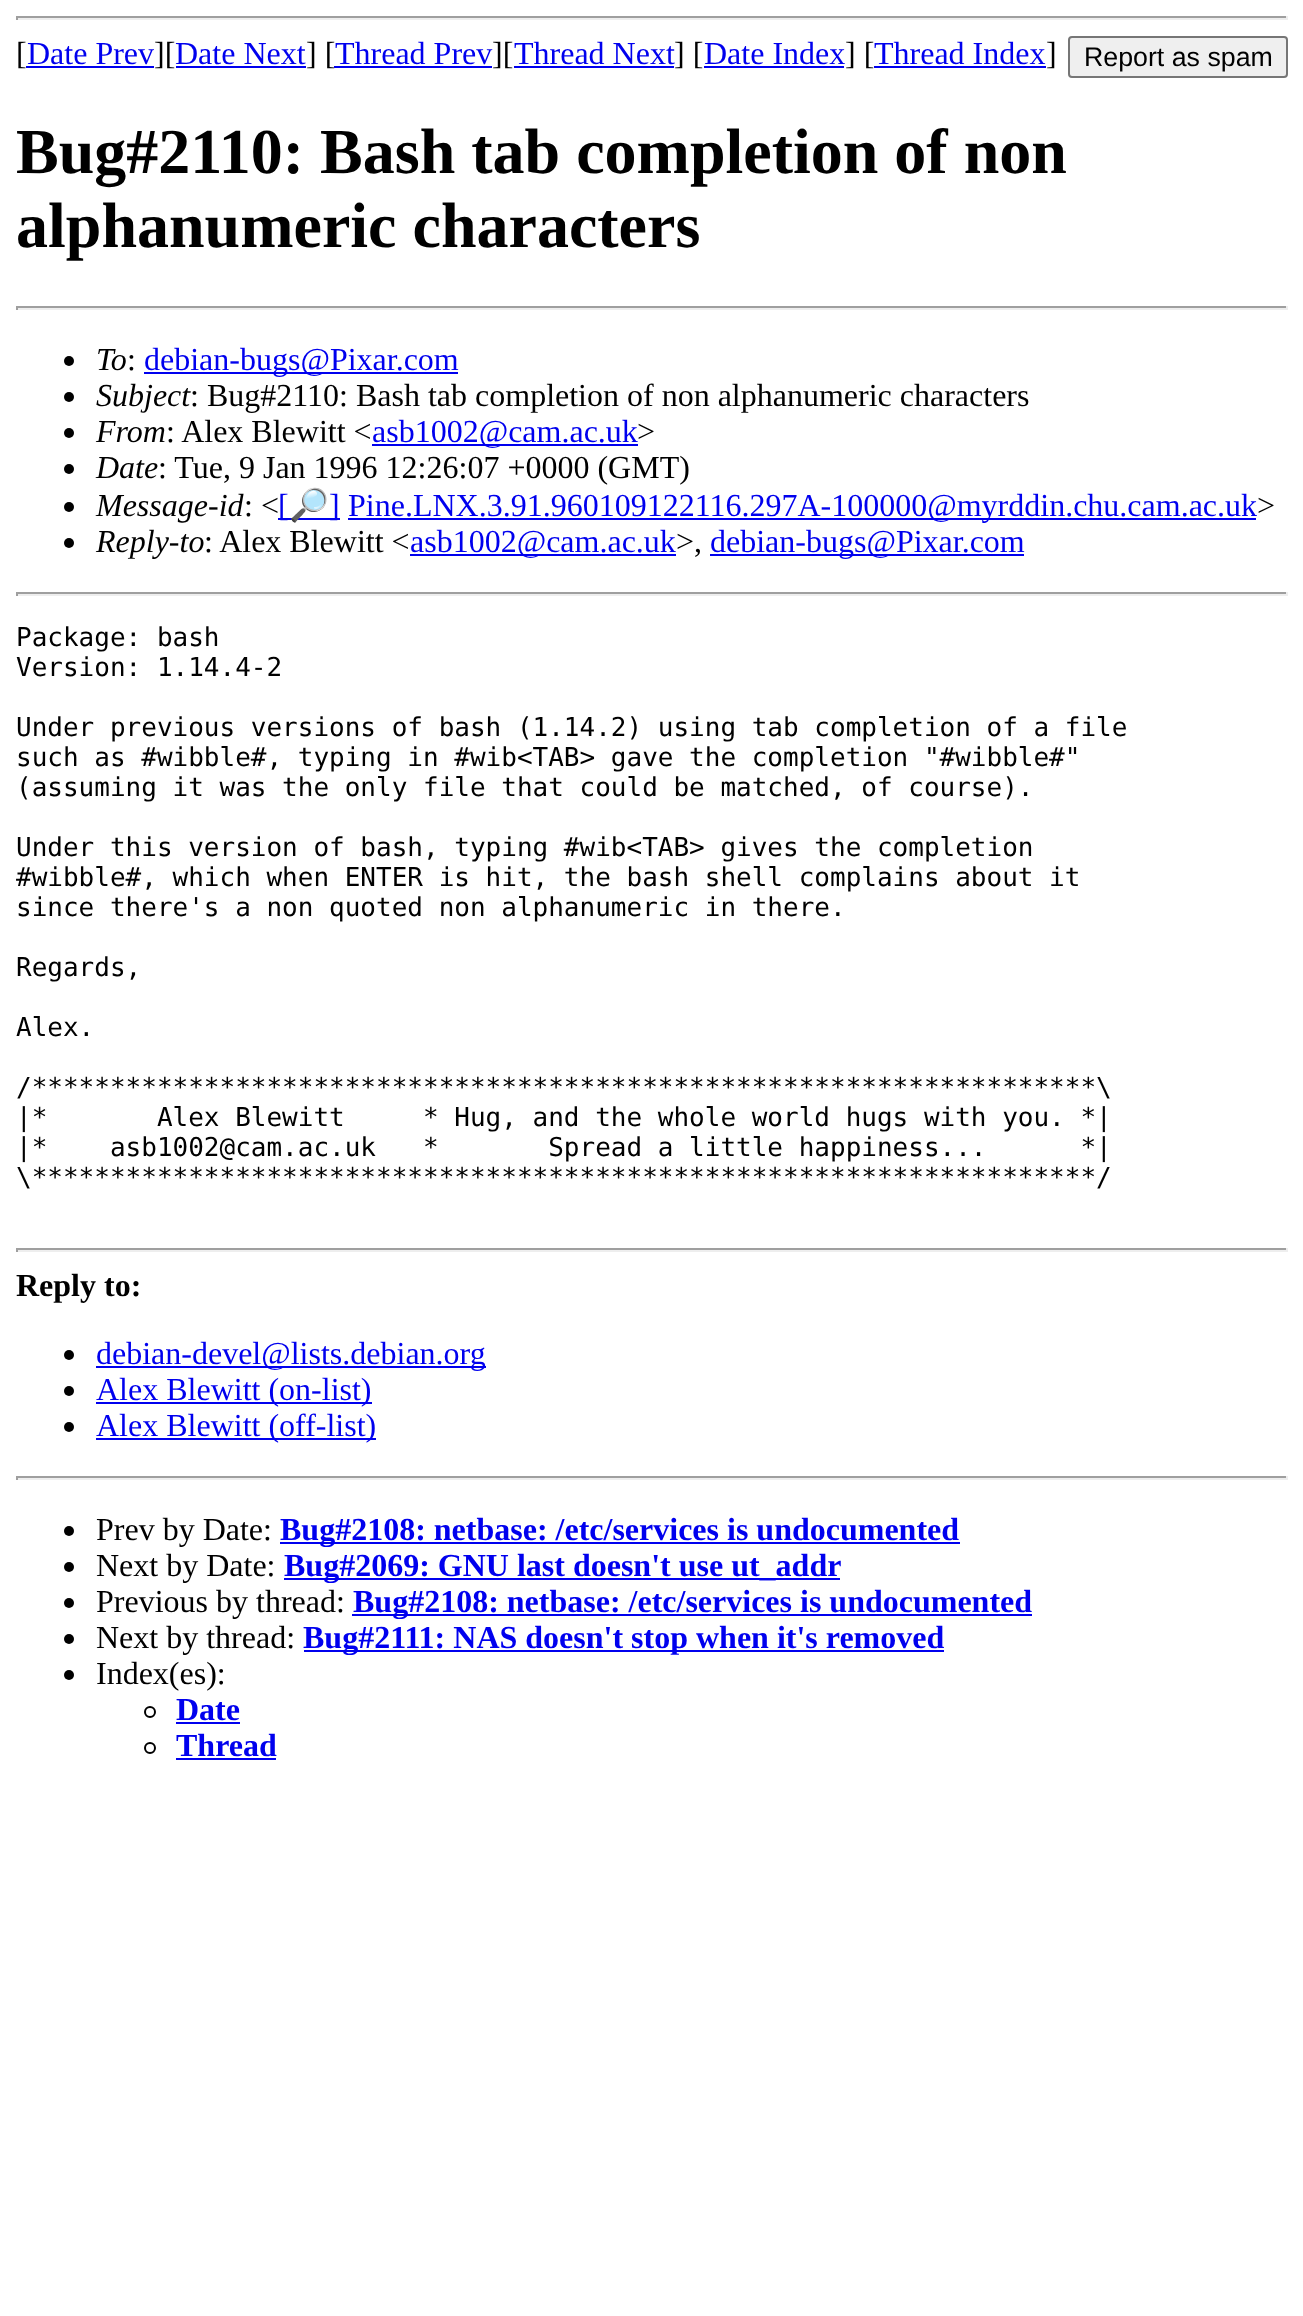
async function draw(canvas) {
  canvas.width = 1303;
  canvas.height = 2316;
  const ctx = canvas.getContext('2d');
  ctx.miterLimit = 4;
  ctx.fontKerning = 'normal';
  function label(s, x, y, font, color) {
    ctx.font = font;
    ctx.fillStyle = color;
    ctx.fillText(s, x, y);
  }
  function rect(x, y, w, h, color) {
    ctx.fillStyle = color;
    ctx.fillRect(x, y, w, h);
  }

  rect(0, 0, 1303, 2316, '#fff');
  rect(16, 16, 1272, 2, '#9f9f9f');
  rect(1286, 16, 2, 4, '#eee');
  rect(16, 18, 1272, 2, '#eee');
  rect(16, 16, 2, 4, '#9f9f9f');
  label('[', 16, 64, '32px Liberation Serif', '#000');
  label('Date Prev', 27, 64, '32px Liberation Serif', '#00e');
  rect(26, 66, 128, 2, '#00e');
  label('][', 154, 64, '32px Liberation Serif', '#000');
  label('Date Next', 175, 64, '32px Liberation Serif', '#00e');
  rect(176, 66, 130, 2, '#00e');
  label('] [', 306, 64, '32px Liberation Serif', '#000');
  label('Thread Prev', 335, 64, '32px Liberation Serif', '#00e');
  rect(334, 66, 158, 2, '#00e');
  label('][', 492, 64, '32px Liberation Serif', '#000');
  label('Thread Next', 514, 64, '32px Liberation Serif', '#00e');
  rect(514, 66, 160, 2, '#00e');
  label('] [', 674, 64, '32px Liberation Serif', '#000');
  label('Date Index', 704, 64, '32px Liberation Serif', '#00e');
  rect(704, 66, 140, 2, '#00e');
  label('] [', 845, 64, '32px Liberation Serif', '#000');
  label('Thread Index', 874, 64, '32px Liberation Serif', '#00e');
  rect(874, 66, 172, 2, '#00e');
  label(']', 1046, 64, '32px Liberation Serif', '#000');
  ctx.fillStyle = '#efefef';
  ctx.beginPath();
  ctx.roundRect(1069, 37, 218, 40, 3);
  ctx.fill();
  ctx.strokeStyle = '#767676';
  ctx.lineWidth = 2;
  ctx.stroke();
  label('Report as spam', 1084, 66, '26.75px Liberation Sans', '#000');
  label('Bug#2110: Bash tab completion of non', 16, 173, 'bold 64px Liberation Serif', '#000');
  label('alphanumeric characters', 16, 247, 'bold 64px Liberation Serif', '#000');
  rect(16, 306, 1272, 2, '#9f9f9f');
  rect(1286, 306, 2, 4, '#eee');
  rect(16, 308, 1272, 2, '#eee');
  rect(16, 306, 2, 4, '#9f9f9f');
  ctx.fillStyle = '#000';
  ctx.beginPath();
  ctx.arc(69, 361, 5, 0, 2 * Math.PI);
  ctx.fill();
  label('To', 96, 370, 'italic 32px Liberation Serif', '#000');
  label(':', 127, 370, '32px Liberation Serif', '#000');
  rect(144, 372, 314, 2, '#00e');
  label('debian-bugs@Pixar.com', 144, 370, '32px Liberation Serif', '#00e');
  ctx.fillStyle = '#000';
  ctx.beginPath();
  ctx.arc(69, 397, 5, 0, 2 * Math.PI);
  ctx.fill();
  label('Subject', 96, 406, 'italic 32px Liberation Serif', '#000');
  label(': Bug#2110: Bash tab completion of non alphanumeric characters', 190, 406, '32px Liberation Serif', '#000');
  ctx.beginPath();
  ctx.arc(69, 433, 5, 0, 2 * Math.PI);
  ctx.fill();
  label('From', 96, 442, 'italic 32px Liberation Serif', '#000');
  label(': Alex Blewitt <', 166, 442, '32px Liberation Serif', '#000');
  rect(372, 444, 266, 2, '#00e');
  label('asb1002@cam.ac.uk', 372, 442, '32px Liberation Serif', '#00e');
  label('>', 637, 442, '32px Liberation Serif', '#000');
  ctx.beginPath();
  ctx.arc(69, 469, 5, 0, 2 * Math.PI);
  ctx.fill();
  label('Date', 96, 478, 'italic 32px Liberation Serif', '#000');
  label(': Tue, 9 Jan 1996 12:26:07 +0000 (GMT)', 158, 478, '32px Liberation Serif', '#000');
  ctx.beginPath();
  ctx.arc(69, 507, 5, 0, 2 * Math.PI);
  ctx.fill();
  label('Message-id', 96, 516, 'italic 32px Liberation Serif', '#000');
  label(': <', 244, 516, '32px Liberation Serif', '#000');
  rect(278, 518, 62, 2, '#00e');
  label('[', 278, 516, '32px Liberation Serif', '#00e');
  label('🔎', 289, 516, '32px Noto Color Emoji', '#00e');
  label(']', 329, 516, '32px Liberation Serif', '#00e');
  rect(348, 518, 908, 2, '#00e');
  label('Pine.LNX.3.91.960109122116.297A-100000@myrddin.chu.cam.ac.uk', 348, 516, '32px Liberation Serif', '#00e');
  label('>', 1257, 516, '32px Liberation Serif', '#000');
  ctx.beginPath();
  ctx.arc(69, 543, 5, 0, 2 * Math.PI);
  ctx.fill();
  label('Reply-to', 96, 552, 'italic 32px Liberation Serif', '#000');
  label(': Alex Blewitt <', 204, 552, '32px Liberation Serif', '#000');
  rect(410, 554, 266, 2, '#00e');
  label('asb1002@cam.ac.uk', 410, 552, '32px Liberation Serif', '#00e');
  label('>,', 676, 552, '32px Liberation Serif', '#000');
  rect(710, 554, 314, 2, '#00e');
  label('debian-bugs@Pixar.com', 710, 552, '32px Liberation Serif', '#00e');
  rect(16, 592, 1272, 2, '#9f9f9f');
  rect(1286, 592, 2, 4, '#eee');
  rect(16, 594, 1272, 2, '#eee');
  rect(16, 592, 2, 4, '#9f9f9f');
  label('Package: bash', 16, 646, '26px DejaVu Sans Mono', '#000');
  label('Version: 1.14.4-2', 16, 676, '26px DejaVu Sans Mono', '#000');
  label('Under previous versions of bash (1.14.2) using tab completion of a file', 16, 736, '26px DejaVu Sans Mono', '#000');
  label('such as #wibble#, typing in #wib<TAB> gave the completion "#wibble#"', 16, 766, '26px DejaVu Sans Mono', '#000');
  label('(assuming it was the only file that could be matched, of course).', 16, 796, '26px DejaVu Sans Mono', '#000');
  label('Under this version of bash, typing #wib<TAB> gives the completion', 16, 856, '26px DejaVu Sans Mono', '#000');
  label('#wibble#, which when ENTER is hit, the bash shell complains about it', 16, 886, '26px DejaVu Sans Mono', '#000');
  label('since there\'s a non quoted non alphanumeric in there.', 16, 916, '26px DejaVu Sans Mono', '#000');
  label('Regards,', 16, 976, '26px DejaVu Sans Mono', '#000');
  label('Alex.', 16, 1036, '26px DejaVu Sans Mono', '#000');
  label('/********************************************************************\\', 16, 1096, '26px DejaVu Sans Mono', '#000');
  label('|*       Alex Blewitt     * Hug, and the whole world hugs with you. *|', 16, 1126, '26px DejaVu Sans Mono', '#000');
  label('|*    asb1002@cam.ac.uk   *       Spread a little happiness...      *|', 16, 1156, '26px DejaVu Sans Mono', '#000');
  label('\\********************************************************************/', 16, 1186, '26px DejaVu Sans Mono', '#000');
  rect(16, 1248, 1272, 2, '#9f9f9f');
  rect(1286, 1248, 2, 4, '#eee');
  rect(16, 1250, 1272, 2, '#eee');
  rect(16, 1248, 2, 4, '#9f9f9f');
  label('Reply to:', 16, 1296, 'bold 32px Liberation Serif', '#000');
  ctx.beginPath();
  ctx.arc(69, 1355, 5, 0, 2 * Math.PI);
  ctx.fill();
  rect(96, 1366, 390, 2, '#00e');
  label('debian-devel@lists.debian.org', 96, 1364, '32px Liberation Serif', '#00e');
  ctx.fillStyle = '#000';
  ctx.beginPath();
  ctx.arc(69, 1391, 5, 0, 2 * Math.PI);
  ctx.fill();
  rect(96, 1402, 276, 2, '#00e');
  label('Alex Blewitt (on-list)', 96, 1400, '32px Liberation Serif', '#00e');
  ctx.fillStyle = '#000';
  ctx.beginPath();
  ctx.arc(69, 1427, 5, 0, 2 * Math.PI);
  ctx.fill();
  rect(96, 1438, 280, 2, '#00e');
  label('Alex Blewitt (off-list)', 96, 1436, '32px Liberation Serif', '#00e');
  rect(16, 1476, 1272, 2, '#9f9f9f');
  rect(1286, 1476, 2, 4, '#eee');
  rect(16, 1478, 1272, 2, '#eee');
  rect(16, 1476, 2, 4, '#9f9f9f');
  ctx.fillStyle = '#000';
  ctx.beginPath();
  ctx.arc(69, 1531, 5, 0, 2 * Math.PI);
  ctx.fill();
  label('Prev by Date:', 96, 1540, '32px Liberation Serif', '#000');
  rect(280, 1542, 680, 2, '#00e');
  label('Bug#2108: netbase: /etc/services is undocumented', 280, 1540, 'bold 32px Liberation Serif', '#00e');
  ctx.fillStyle = '#000';
  ctx.beginPath();
  ctx.arc(69, 1567, 5, 0, 2 * Math.PI);
  ctx.fill();
  label('Next by Date:', 96, 1576, '32px Liberation Serif', '#000');
  rect(284, 1578, 556, 2, '#00e');
  label('Bug#2069: GNU last doesn\'t use ut_addr', 284, 1576, 'bold 32px Liberation Serif', '#00e');
  ctx.fillStyle = '#000';
  ctx.beginPath();
  ctx.arc(69, 1603, 5, 0, 2 * Math.PI);
  ctx.fill();
  label('Previous by thread:', 96, 1612, '32px Liberation Serif', '#000');
  rect(352, 1614, 680, 2, '#00e');
  label('Bug#2108: netbase: /etc/services is undocumented', 353, 1612, 'bold 32px Liberation Serif', '#00e');
  ctx.fillStyle = '#000';
  ctx.beginPath();
  ctx.arc(69, 1639, 5, 0, 2 * Math.PI);
  ctx.fill();
  label('Next by thread:', 96, 1648, '32px Liberation Serif', '#000');
  rect(304, 1650, 640, 2, '#00e');
  label('Bug#2111: NAS doesn\'t stop when it\'s removed', 303, 1648, 'bold 32px Liberation Serif', '#00e');
  ctx.fillStyle = '#000';
  ctx.beginPath();
  ctx.arc(69, 1675, 5, 0, 2 * Math.PI);
  ctx.fill();
  label('Index(es):', 96, 1684, '32px Liberation Serif', '#000');
  ctx.beginPath();
  ctx.arc(150, 1712, 5, 0, 2 * Math.PI);
  ctx.strokeStyle = '#000';
  ctx.stroke();
  label('Date', 176, 1720, 'bold 32px Liberation Serif', '#00e');
  rect(176, 1722, 64, 2, '#00e');
  ctx.beginPath();
  ctx.arc(150, 1748, 5, 0, 2 * Math.PI);
  ctx.stroke();
  label('Thread', 176, 1756, 'bold 32px Liberation Serif', '#00e');
  rect(176, 1758, 100, 2, '#00e');
}

draw(document.querySelector('canvas'));
